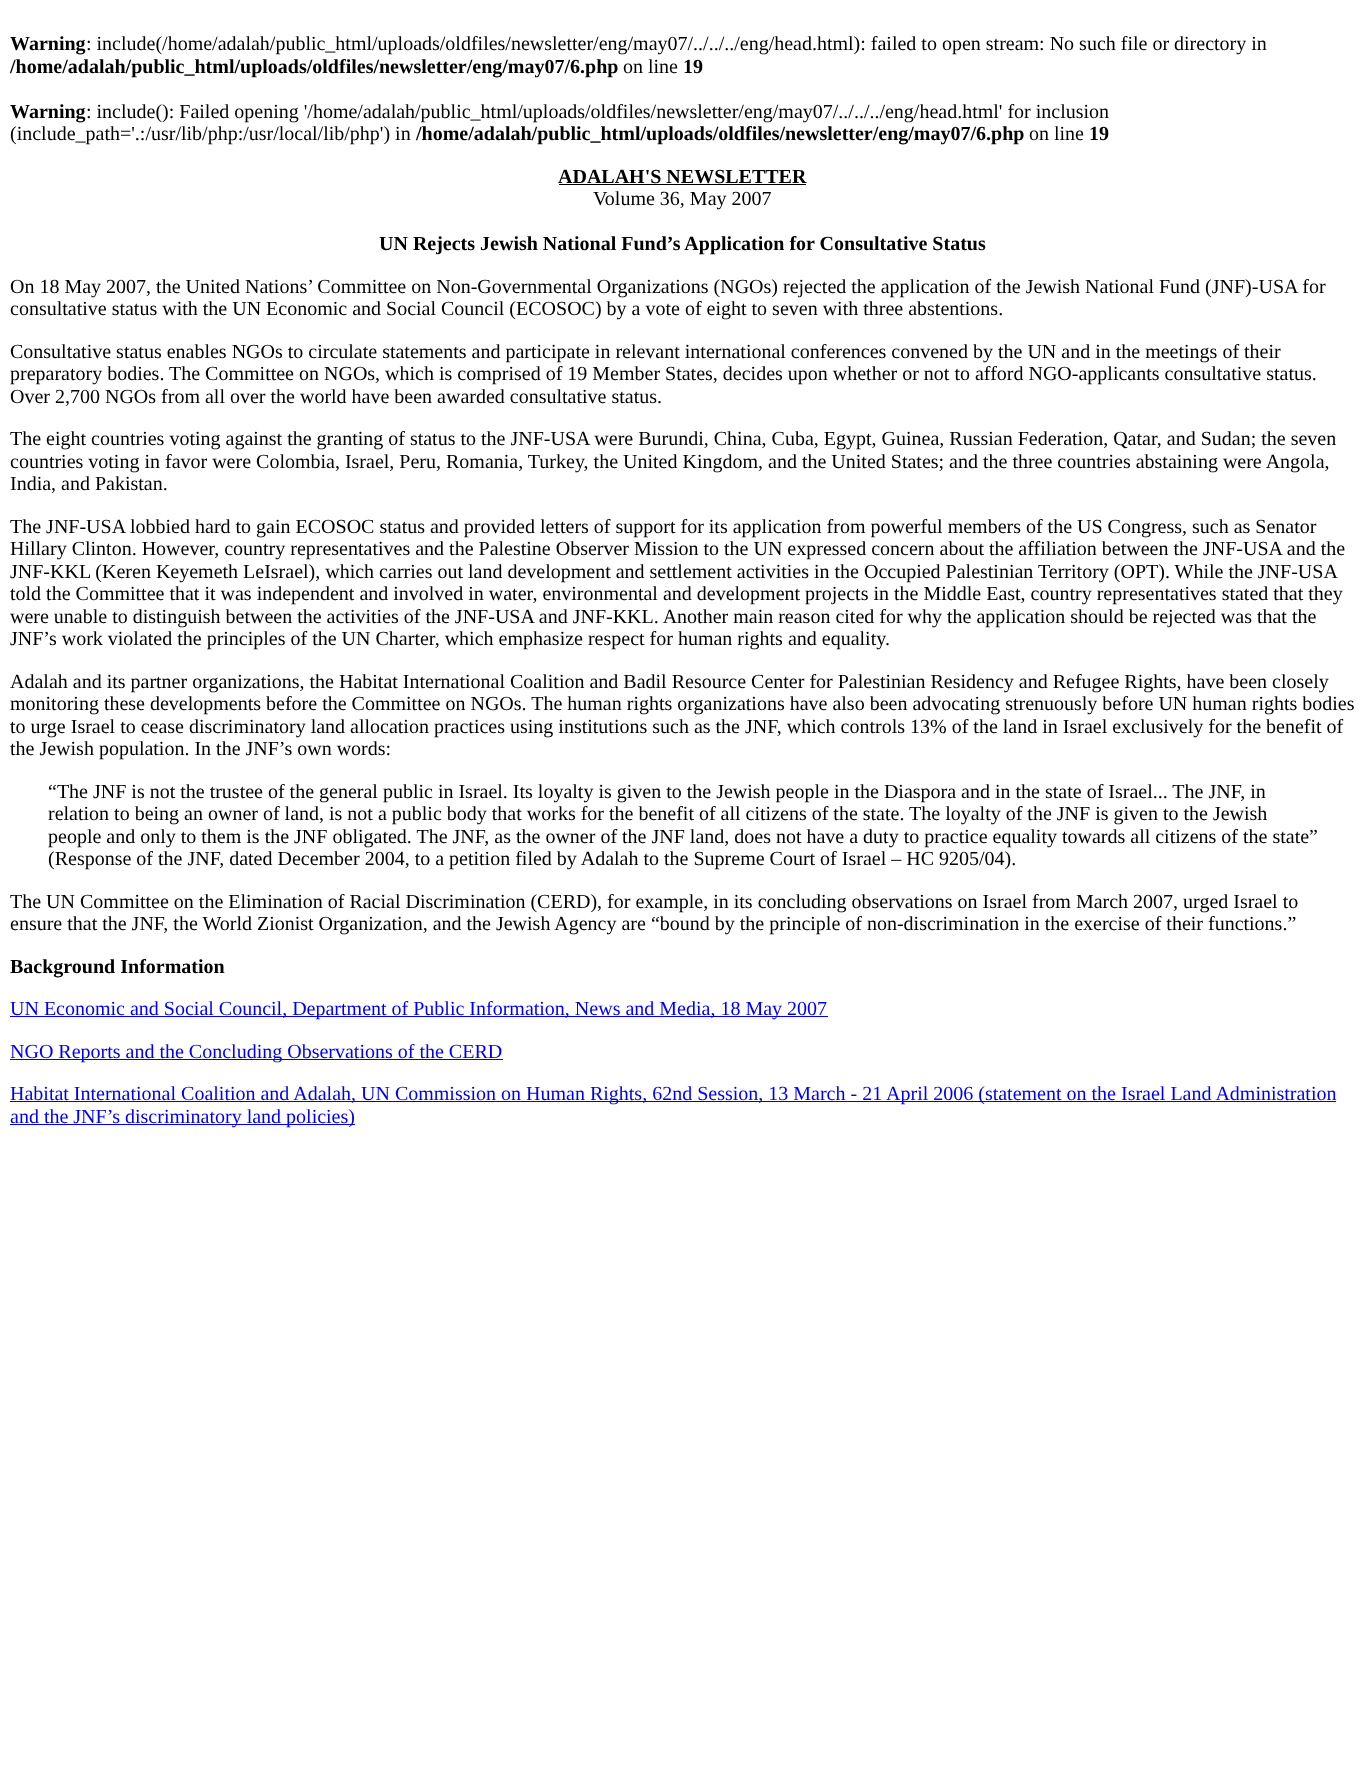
async function draw(canvas) {
  canvas.width = 1364;
  canvas.height = 1767;
  const ctx = canvas.getContext('2d');
  ctx.miterLimit = 4;
  ctx.fontKerning = 'normal';
  function label(s, x, y, font, color) {
    ctx.font = font;
    ctx.fillStyle = color;
    ctx.fillText(s, x, y);
  }
  function rect(x, y, w, h, color) {
    ctx.fillStyle = color;
    ctx.fillRect(x, y, w, h);
  }

  rect(0, 0, 1364, 1767, '#fff');
  label('Warning', 10, 50, 'bold 20px Liberation Serif', '#000');
  label(': include(/home/adalah/public_html/uploads/oldfiles/newsletter/eng/may07/../../../eng/head.html): failed to open stream: No such file or directory in', 86, 50, '20px Liberation Serif', '#000');
  label('/home/adalah/public_html/uploads/oldfiles/newsletter/eng/may07/6.php', 10, 73, 'bold 20px Liberation Serif', '#000');
  label('on line', 623, 73, '20px Liberation Serif', '#000');
  label('19', 683, 73, 'bold 20px Liberation Serif', '#000');
  label('Warning', 10, 118, 'bold 20px Liberation Serif', '#000');
  label(': include(): Failed opening \'/home/adalah/public_html/uploads/oldfiles/newsletter/eng/may07/../../../eng/head.html\' for inclusion', 86, 118, '20px Liberation Serif', '#000');
  label('(include_path=\'.:/usr/lib/php:/usr/local/lib/php\') in', 10, 140, '20px Liberation Serif', '#000');
  label('/home/adalah/public_html/uploads/oldfiles/newsletter/eng/may07/6.php', 416, 140, 'bold 20px Liberation Serif', '#000');
  label('on line', 1029, 140, '20px Liberation Serif', '#000');
  label('19', 1089, 140, 'bold 20px Liberation Serif', '#000');
  label('ADALAH\'S NEWSLETTER', 558, 183, 'bold 20px Liberation Serif', '#000');
  rect(559, 184, 247, 1, '#000');
  label('Volume 36, May 2007', 593, 205, '20px Liberation Serif', '#000');
  label('UN Rejects Jewish National Fund’s Application for Consultative Status', 379, 250, 'bold 20px Liberation Serif', '#000');
  label('On 18 May 2007, the United Nations’ Committee on Non-Governmental Organizations (NGOs) rejected the application of the Jewish National Fund (JNF)-USA for', 10, 293, '20px Liberation Serif', '#000');
  label('consultative status with the UN Economic and Social Council (ECOSOC) by a vote of eight to seven with three abstentions.', 10, 315, '20px Liberation Serif', '#000');
  label('Consultative status enables NGOs to circulate statements and participate in relevant international conferences convened by the UN and in the meetings of their', 10, 358, '20px Liberation Serif', '#000');
  label('preparatory bodies. The Committee on NGOs, which is comprised of 19 Member States, decides upon whether or not to afford NGO-applicants consultative status.', 10, 380, '20px Liberation Serif', '#000');
  label('Over 2,700 NGOs from all over the world have been awarded consultative status.', 10, 403, '20px Liberation Serif', '#000');
  label('The eight countries voting against the granting of status to the JNF-USA were Burundi, China, Cuba, Egypt, Guinea, Russian Federation, Qatar, and Sudan; the seven', 10, 445, '20px Liberation Serif', '#000');
  label('countries voting in favor were Colombia, Israel, Peru, Romania, Turkey, the United Kingdom, and the United States; and the three countries abstaining were Angola,', 10, 468, '20px Liberation Serif', '#000');
  label('India, and Pakistan.', 10, 490, '20px Liberation Serif', '#000');
  label('The JNF-USA lobbied hard to gain ECOSOC status and provided letters of support for its application from powerful members of the US Congress, such as Senator', 10, 533, '20px Liberation Serif', '#000');
  label('Hillary Clinton. However, country representatives and the Palestine Observer Mission to the UN expressed concern about the affiliation between the JNF-USA and the', 10, 555, '20px Liberation Serif', '#000');
  label('JNF-KKL (Keren Keyemeth LeIsrael), which carries out land development and settlement activities in the Occupied Palestinian Territory (OPT). While the JNF-USA', 10, 578, '20px Liberation Serif', '#000');
  label('told the Committee that it was independent and involved in water, environmental and development projects in the Middle East, country representatives stated that they', 10, 600, '20px Liberation Serif', '#000');
  label('were unable to distinguish between the activities of the JNF-USA and JNF-KKL. Another main reason cited for why the application should be rejected was that the', 10, 623, '20px Liberation Serif', '#000');
  label('JNF’s work violated the principles of the UN Charter, which emphasize respect for human rights and equality.', 10, 645, '20px Liberation Serif', '#000');
  label('Adalah and its partner organizations, the Habitat International Coalition and Badil Resource Center for Palestinian Residency and Refugee Rights, have been closely', 10, 688, '20px Liberation Serif', '#000');
  label('monitoring these developments before the Committee on NGOs. The human rights organizations have also been advocating strenuously before UN human rights bodies', 10, 710, '20px Liberation Serif', '#000');
  label('to urge Israel to cease discriminatory land allocation practices using institutions such as the JNF, which controls 13% of the land in Israel exclusively for the benefit of', 10, 733, '20px Liberation Serif', '#000');
  label('the Jewish population. In the JNF’s own words:', 10, 755, '20px Liberation Serif', '#000');
  label('“The JNF is not the trustee of the general public in Israel. Its loyalty is given to the Jewish people in the Diaspora and in the state of Israel... The JNF, in', 48, 798, '20px Liberation Serif', '#000');
  label('relation to being an owner of land, is not a public body that works for the benefit of all citizens of the state. The loyalty of the JNF is given to the Jewish', 48, 820, '20px Liberation Serif', '#000');
  label('people and only to them is the JNF obligated. The JNF, as the owner of the JNF land, does not have a duty to practice equality towards all citizens of the state”', 48, 843, '20px Liberation Serif', '#000');
  label('(Response of the JNF, dated December 2004, to a petition filed by Adalah to the Supreme Court of Israel – HC 9205/04).', 48, 865, '20px Liberation Serif', '#000');
  label('The UN Committee on the Elimination of Racial Discrimination (CERD), for example, in its concluding observations on Israel from March 2007, urged Israel to', 10, 908, '20px Liberation Serif', '#000');
  label('ensure that the JNF, the World Zionist Organization, and the Jewish Agency are “bound by the principle of non-discrimination in the exercise of their functions.”', 10, 930, '20px Liberation Serif', '#000');
  label('Background Information', 10, 973, 'bold 20px Liberation Serif', '#000');
  rect(10, 1016, 818, 1, '#00e');
  label('UN Economic and Social Council, Department of Public Information, News and Media, 18 May 2007', 10, 1015, '20px Liberation Serif', '#00e');
  rect(10, 1059, 493, 1, '#00e');
  label('NGO Reports and the Concluding Observations of the CERD', 10, 1058, '20px Liberation Serif', '#00e');
  rect(10, 1101, 1326, 1, '#00e');
  label('Habitat International Coalition and Adalah, UN Commission on Human Rights, 62nd Session, 13 March - 21 April 2006 (statement on the Israel Land Administration', 10, 1100, '20px Liberation Serif', '#00e');
  rect(10, 1124, 345, 1, '#00e');
  label('and the JNF’s discriminatory land policies)', 10, 1123, '20px Liberation Serif', '#00e');
}

draw(document.querySelector('canvas'));
